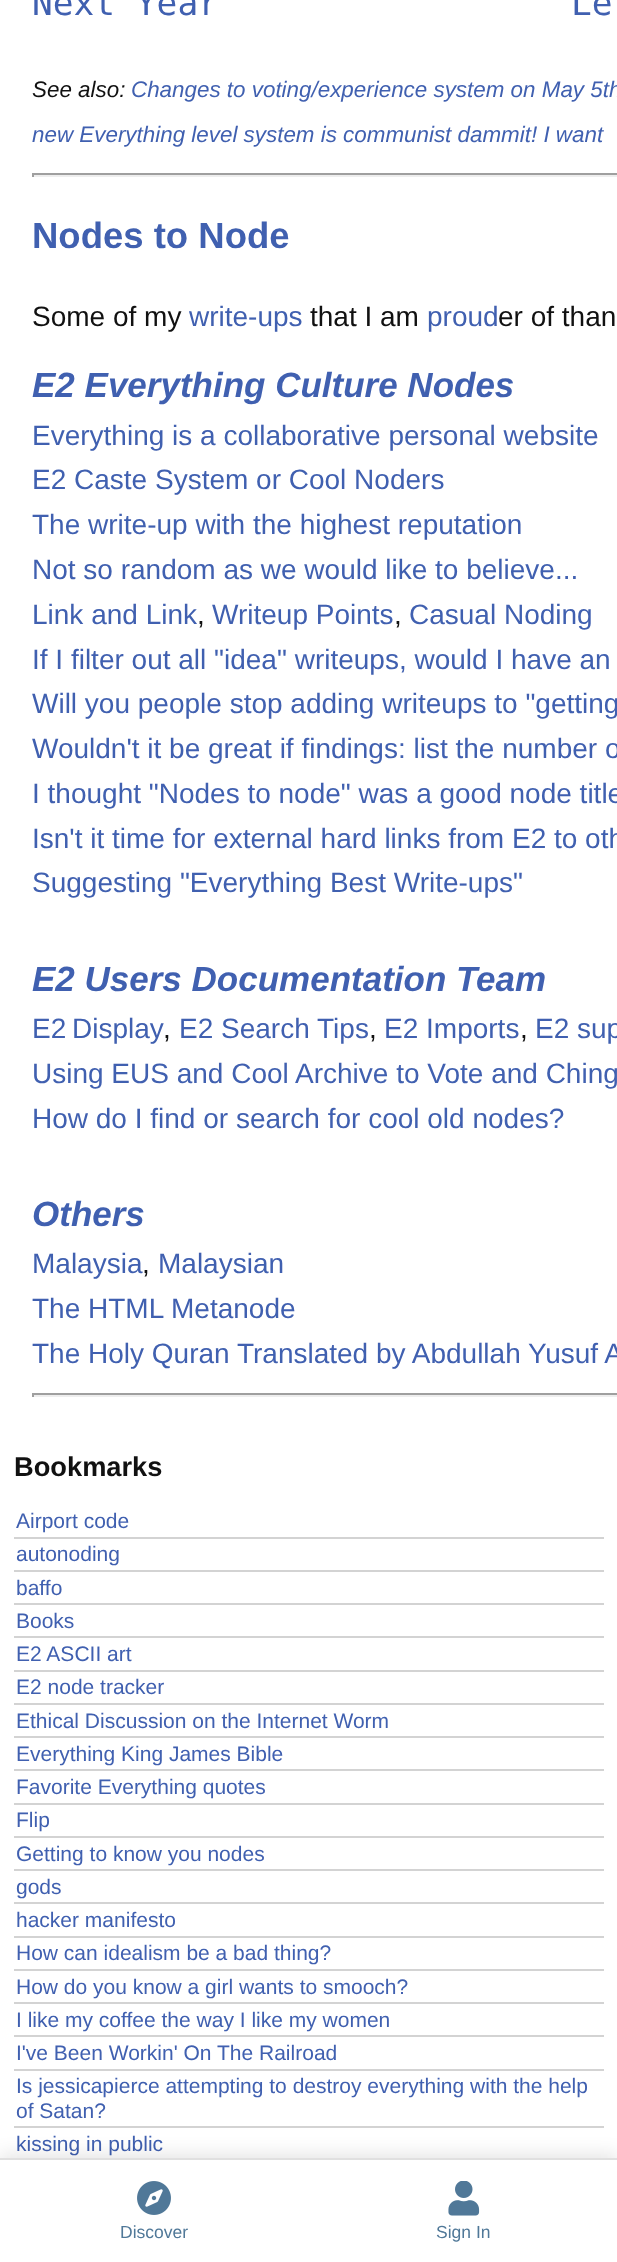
async function draw(canvas) {
  canvas.width = 617;
  canvas.height = 2262;
  const ctx = canvas.getContext('2d');
  ctx.miterLimit = 4;
  ctx.fontKerning = 'normal';
  function label(s, x, y, font, color) {
    ctx.font = font;
    ctx.fillStyle = color;
    ctx.fillText(s, x, y);
  }
  function rect(x, y, w, h, color) {
    ctx.fillStyle = color;
    ctx.fillRect(x, y, w, h);
  }
  async function image(src, x, y, w, h) {
    const img = new Image();
    img.src = src;
    await img.decode();
    ctx.drawImage(img, x, y, w, h);
  }

  rect(0, 0, 617, 2262, '#fff');
  label('Next Year', 32, 15, '34.5px DejaVu Sans Mono', '#4060b0');
  label('Le', 571, 15, '34.5px DejaVu Sans Mono', '#4060b0');
  label('See also:', 32, 97, 'italic 22.4px Liberation Sans', '#111');
  label('Changes to voting/experience system on May 5th', 131, 97, 'italic 22.4px Liberation Sans', '#4060b0');
  label('new Everything level system is communist dammit! I want', 32, 142, 'italic 22.4px Liberation Sans', '#4060b0');
  rect(32, 173, 585, 2, '#9f9f9f');
  rect(32, 175, 585, 2, '#eee');
  rect(32, 173, 2, 4, '#9f9f9f');
  label('Nodes to Node', 32, 248, 'bold 36.5px Liberation Sans', '#4060b0');
  label('Some of my', 32, 326, '28px Liberation Sans', '#111');
  label('write-ups', 189, 326, '28px Liberation Sans', '#4060b0');
  label('that I am', 310, 326, '28px Liberation Sans', '#111');
  label('proud', 427, 326, '28px Liberation Sans', '#4060b0');
  label('er of than', 498, 326, '28px Liberation Sans', '#111');
  label('E2 Everything Culture Nodes', 32, 397, 'italic bold 35px Liberation Sans', '#4060b0');
  label('Everything is a collaborative personal website', 32, 445, '28px Liberation Sans', '#4060b0');
  label('E2 Caste System or Cool Noders', 32, 489, '28px Liberation Sans', '#4060b0');
  label('The write-up with the highest reputation', 32, 534, '28px Liberation Sans', '#4060b0');
  label('Not so random as we would like to believe...', 32, 579, '28px Liberation Sans', '#4060b0');
  label('Link and Link', 32, 624, '28px Liberation Sans', '#4060b0');
  label(',', 197, 624, '28px Liberation Sans', '#111');
  label('Writeup Points', 212, 624, '28px Liberation Sans', '#4060b0');
  label(',', 394, 624, '28px Liberation Sans', '#111');
  label('Casual Noding', 409, 624, '28px Liberation Sans', '#4060b0');
  label('If I filter out all "idea" writeups, would I have an', 32, 669, '28px Liberation Sans', '#4060b0');
  label('Will you people stop adding writeups to "getting', 32, 713, '28px Liberation Sans', '#4060b0');
  label('Wouldn\'t it be great if findings: list the number o', 32, 758, '28px Liberation Sans', '#4060b0');
  label('I thought "Nodes to node" was a good node title', 32, 803, '28px Liberation Sans', '#4060b0');
  label('Isn\'t it time for external hard links from E2 to oth', 32, 848, '28px Liberation Sans', '#4060b0');
  label('Suggesting "Everything Best Write-ups"', 32, 892, '28px Liberation Sans', '#4060b0');
  label('E2 Users Documentation Team', 32, 991, 'italic bold 35px Liberation Sans', '#4060b0');
  ctx.wordSpacing = '-2px';
  label('E2 Display', 32, 1038, '28px Liberation Sans', '#4060b0');
  ctx.wordSpacing = '0px';
  label(',', 163, 1038, '28px Liberation Sans', '#111');
  label('E2 Search Tips', 179, 1038, '28px Liberation Sans', '#4060b0');
  label(',', 369, 1038, '28px Liberation Sans', '#111');
  label('E2 Imports', 384, 1038, '28px Liberation Sans', '#4060b0');
  label(',', 520, 1038, '28px Liberation Sans', '#111');
  label('E2 sup', 535, 1038, '28px Liberation Sans', '#4060b0');
  label('Using EUS and Cool Archive to Vote and Ching', 32, 1083, '28px Liberation Sans', '#4060b0');
  label('How do I find or search for cool old nodes?', 32, 1128, '28px Liberation Sans', '#4060b0');
  label('Others', 32, 1226, 'italic bold 35px Liberation Sans', '#4060b0');
  label('Malaysia', 32, 1273, '28px Liberation Sans', '#4060b0');
  label(',', 142, 1273, '28px Liberation Sans', '#111');
  label('Malaysian', 158, 1273, '28px Liberation Sans', '#4060b0');
  label('The HTML Metanode', 32, 1318, '28px Liberation Sans', '#4060b0');
  label('The Holy Quran Translated by Abdullah Yusuf A', 32, 1363, '28px Liberation Sans', '#4060b0');
  rect(32, 1393, 585, 2, '#9f9f9f');
  rect(32, 1395, 585, 2, '#eee');
  rect(32, 1393, 2, 4, '#9f9f9f');
  label('Bookmarks', 14, 1476, 'bold 27.25px Liberation Sans', '#111');
  rect(14, 1537, 590, 2, '#d3d3d3');
  label('Airport code', 16, 1528, '21px Liberation Sans', '#4060b0');
  rect(14, 1570, 590, 2, '#d3d3d3');
  label('autonoding', 16, 1561, '21px Liberation Sans', '#4060b0');
  rect(14, 1603, 590, 2, '#d3d3d3');
  label('baffo', 16, 1595, '21px Liberation Sans', '#4060b0');
  rect(14, 1636, 590, 2, '#d3d3d3');
  label('Books', 16, 1628, '21px Liberation Sans', '#4060b0');
  rect(14, 1670, 590, 2, '#d3d3d3');
  label('E2 ASCII art', 16, 1661, '21px Liberation Sans', '#4060b0');
  rect(14, 1703, 590, 2, '#d3d3d3');
  label('E2 node tracker', 16, 1694, '21px Liberation Sans', '#4060b0');
  rect(14, 1736, 590, 2, '#d3d3d3');
  label('Ethical Discussion on the Internet Worm', 16, 1728, '21px Liberation Sans', '#4060b0');
  rect(14, 1769, 590, 2, '#d3d3d3');
  label('Everything King James Bible', 16, 1761, '21px Liberation Sans', '#4060b0');
  rect(14, 1803, 590, 2, '#d3d3d3');
  label('Favorite Everything quotes', 16, 1794, '21px Liberation Sans', '#4060b0');
  rect(14, 1836, 590, 2, '#d3d3d3');
  label('Flip', 16, 1827, '21px Liberation Sans', '#4060b0');
  rect(14, 1869, 590, 2, '#d3d3d3');
  label('Getting to know you nodes', 16, 1861, '21px Liberation Sans', '#4060b0');
  rect(14, 1902, 590, 2, '#d3d3d3');
  label('gods', 16, 1894, '21px Liberation Sans', '#4060b0');
  rect(14, 1936, 590, 2, '#d3d3d3');
  label('hacker manifesto', 16, 1927, '21px Liberation Sans', '#4060b0');
  rect(14, 1969, 590, 2, '#d3d3d3');
  label('How can idealism be a bad thing?', 16, 1960, '21px Liberation Sans', '#4060b0');
  rect(14, 2002, 590, 2, '#d3d3d3');
  label('How do you know a girl wants to smooch?', 16, 1994, '21px Liberation Sans', '#4060b0');
  rect(14, 2035, 590, 2, '#d3d3d3');
  label('I like my coffee the way I like my women', 16, 2027, '21px Liberation Sans', '#4060b0');
  rect(14, 2069, 590, 2, '#d3d3d3');
  label('I\'ve Been Workin\' On The Railroad', 16, 2060, '21px Liberation Sans', '#4060b0');
  rect(14, 2126, 590, 2, '#d3d3d3');
  label('Is jessicapierce attempting to destroy everything with the help', 16, 2093, '21px Liberation Sans', '#4060b0');
  label('of Satan?', 16, 2118, '21px Liberation Sans', '#4060b0');
  label('kissing in public', 16, 2151, '21px Liberation Sans', '#4060b0');
  ctx.fillStyle = '#0000001a';
  ctx.filter = 'blur(9px)';
  ctx.beginPath();
  ctx.rect(0, 2154, 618, 105);
  ctx.fill();
  ctx.filter = 'none';
  rect(0, 2160, 617, 102, '#fff');
  rect(0, 2158, 617, 2, '#e0e0e0');
  await image('assets/img1.png', 137, 2181, 34, 34);
  label('Discover', 120, 2238, '17.5px Liberation Sans', '#507898');
  await image('assets/img2.png', 448, 2181, 32, 35);
  label('Sign In', 436, 2238, '17.5px Liberation Sans', '#507898');
}

draw(document.querySelector('canvas'));
